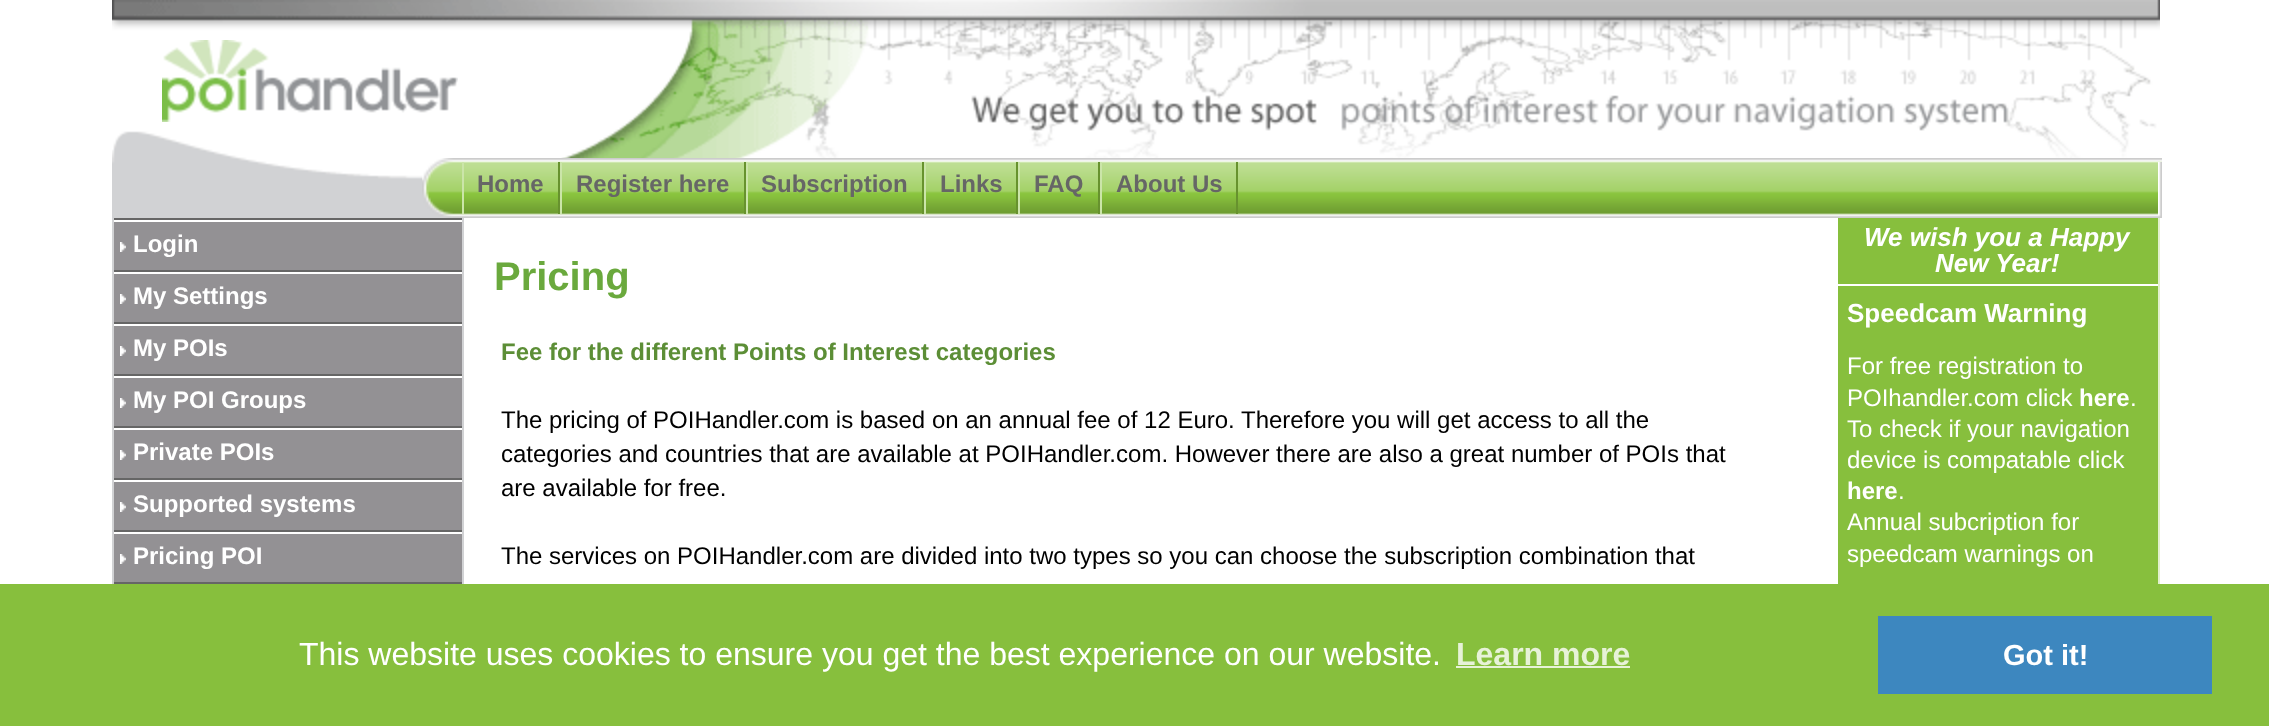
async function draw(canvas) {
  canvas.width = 2269;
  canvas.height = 726;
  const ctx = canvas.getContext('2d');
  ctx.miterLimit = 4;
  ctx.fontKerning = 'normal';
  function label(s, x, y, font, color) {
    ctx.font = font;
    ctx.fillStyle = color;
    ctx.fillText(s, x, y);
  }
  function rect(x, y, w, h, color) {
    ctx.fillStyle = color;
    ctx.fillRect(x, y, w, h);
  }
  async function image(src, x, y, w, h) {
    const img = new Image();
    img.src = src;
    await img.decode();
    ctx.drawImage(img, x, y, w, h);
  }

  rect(0, 0, 2269, 726, '#fff');
  await image('assets/img1.png', 112, 0, 2048, 218);
  await image('assets/img2.png', 162, 40, 296, 82);
  await image('assets/img3.png', 453, 158, 1709, 60);
  await image('assets/img4.png', 422, 158, 31, 60);
  rect(558, 162, 2, 52, '#67922e');
  rect(462, 162, 2, 52, '#cbe5a9');
  label('Home', 477, 192, 'bold 24px Liberation Sans', '#666');
  rect(744, 162, 2, 52, '#67922e');
  rect(560, 162, 2, 52, '#cbe5a9');
  label('Register here', 576, 192, 'bold 24px Liberation Sans', '#666');
  rect(922, 162, 2, 52, '#67922e');
  rect(746, 162, 2, 52, '#cbe5a9');
  label('Subscription', 761, 192, 'bold 24px Liberation Sans', '#666');
  rect(1016, 162, 2, 52, '#67922e');
  rect(924, 162, 2, 52, '#cbe5a9');
  label('Links', 940, 192, 'bold 24px Liberation Sans', '#666');
  rect(1098, 162, 2, 52, '#67922e');
  rect(1018, 162, 2, 52, '#cbe5a9');
  label('FAQ', 1034, 192, 'bold 24px Liberation Sans', '#666');
  rect(1236, 162, 2, 52, '#67922e');
  rect(1100, 162, 2, 52, '#cbe5a9');
  label('About Us', 1116, 192, 'bold 24px Liberation Sans', '#666');
  await image('assets/img5.png', 2158, 162, 4, 55);
  rect(2158, 218, 2, 366, '#e2f0cf');
  rect(112, 218, 352, 366, '#d1d2d4');
  rect(114, 218, 348, 2, '#666');
  rect(114, 222, 348, 48, '#939194');
  await image('assets/img6.png', 120, 242, 6, 10);
  rect(114, 220, 348, 2, '#fff');
  rect(114, 270, 348, 2, '#666');
  label('Login', 133, 252, 'bold 24px Liberation Sans', '#fff');
  rect(114, 274, 348, 48, '#939194');
  await image('assets/img6.png', 120, 294, 6, 10);
  rect(114, 272, 348, 2, '#fff');
  rect(114, 322, 348, 2, '#666');
  label('My Settings', 133, 304, 'bold 24px Liberation Sans', '#fff');
  rect(114, 326, 348, 48, '#939194');
  await image('assets/img6.png', 120, 346, 6, 10);
  rect(114, 324, 348, 2, '#fff');
  rect(114, 374, 348, 2, '#666');
  label('My POIs', 133, 356, 'bold 24px Liberation Sans', '#fff');
  rect(114, 378, 348, 48, '#939194');
  await image('assets/img6.png', 120, 398, 6, 10);
  rect(114, 376, 348, 2, '#fff');
  rect(114, 426, 348, 2, '#666');
  label('My POI Groups', 133, 408, 'bold 24px Liberation Sans', '#fff');
  rect(114, 430, 348, 48, '#939194');
  await image('assets/img6.png', 120, 450, 6, 10);
  rect(114, 428, 348, 2, '#fff');
  rect(114, 478, 348, 2, '#666');
  label('Private POIs', 133, 460, 'bold 24px Liberation Sans', '#fff');
  rect(114, 482, 348, 48, '#939194');
  await image('assets/img6.png', 120, 502, 6, 10);
  rect(114, 480, 348, 2, '#fff');
  rect(114, 530, 348, 2, '#666');
  label('Supported systems', 133, 512, 'bold 24px Liberation Sans', '#fff');
  rect(114, 534, 348, 48, '#939194');
  await image('assets/img6.png', 120, 554, 6, 10);
  rect(114, 532, 348, 2, '#fff');
  rect(114, 582, 348, 2, '#666');
  label('Pricing POI', 133, 564, 'bold 24px Liberation Sans', '#fff');
  label('Pricing', 494, 290, 'bold 40px Liberation Sans', '#6aa93d');
  label('Fee for the different Points of Interest categories', 501, 360, 'bold 24px Liberation Sans', '#5c8e36');
  label('The pricing of POIHandler.com is based on an annual fee of 12 Euro. Therefore you will get access to all the', 501, 428, '24px Liberation Sans', '#000');
  label('categories and countries that are available at POIHandler.com. However there are also a great number of POIs that', 501, 462, '24px Liberation Sans', '#000');
  label('are available for free.', 501, 496, '24px Liberation Sans', '#000');
  label('The services on POIHandler.com are divided into two types so you can choose the subscription combination that', 501, 564, '24px Liberation Sans', '#000');
  rect(1838, 218, 320, 66, '#87bf3d');
  label('We wish you a Happy', 1864, 246, 'italic bold 26px Liberation Sans', '#fff');
  label('New Year!', 1935, 272, 'italic bold 26px Liberation Sans', '#fff');
  rect(1838, 286, 320, 298, '#87bf3d');
  label('Speedcam Warning', 1847, 322, 'bold 26px Liberation Sans', '#fff');
  label('For free registration to', 1847, 374, '24px Liberation Sans', '#fff');
  label('POIhandler.com click', 1847, 406, '24px Liberation Sans', '#fff');
  label('here', 2079, 406, 'bold 24px Liberation Sans', '#fff');
  label('.', 2130, 406, '24px Liberation Sans', '#fff');
  label('To check if your navigation', 1847, 437, '24px Liberation Sans', '#fff');
  label('device is compatable click', 1847, 468, '24px Liberation Sans', '#fff');
  label('here', 1847, 499, 'bold 24px Liberation Sans', '#fff');
  label('.', 1898, 499, '24px Liberation Sans', '#fff');
  label('Annual subcription for', 1847, 530, '24px Liberation Sans', '#fff');
  label('speedcam warnings on', 1847, 562, '24px Liberation Sans', '#fff');
  rect(0, 584, 2269, 142, '#87bf3d');
  label('This website uses cookies to ensure you get the best experience on our website.', 299, 665, '32px Liberation Sans', '#fff');
  label('Learn more', 1456, 665, 'bold 32px Liberation Sans', '#e7f2d8');
  rect(1456, 666, 174, 2, '#e7f2d8');
  rect(1878, 616, 334, 78, '#3d87bf');
  label('Got it!', 2003, 665, 'bold 29px Liberation Sans', '#fff');
}

draw(document.querySelector('canvas'));
